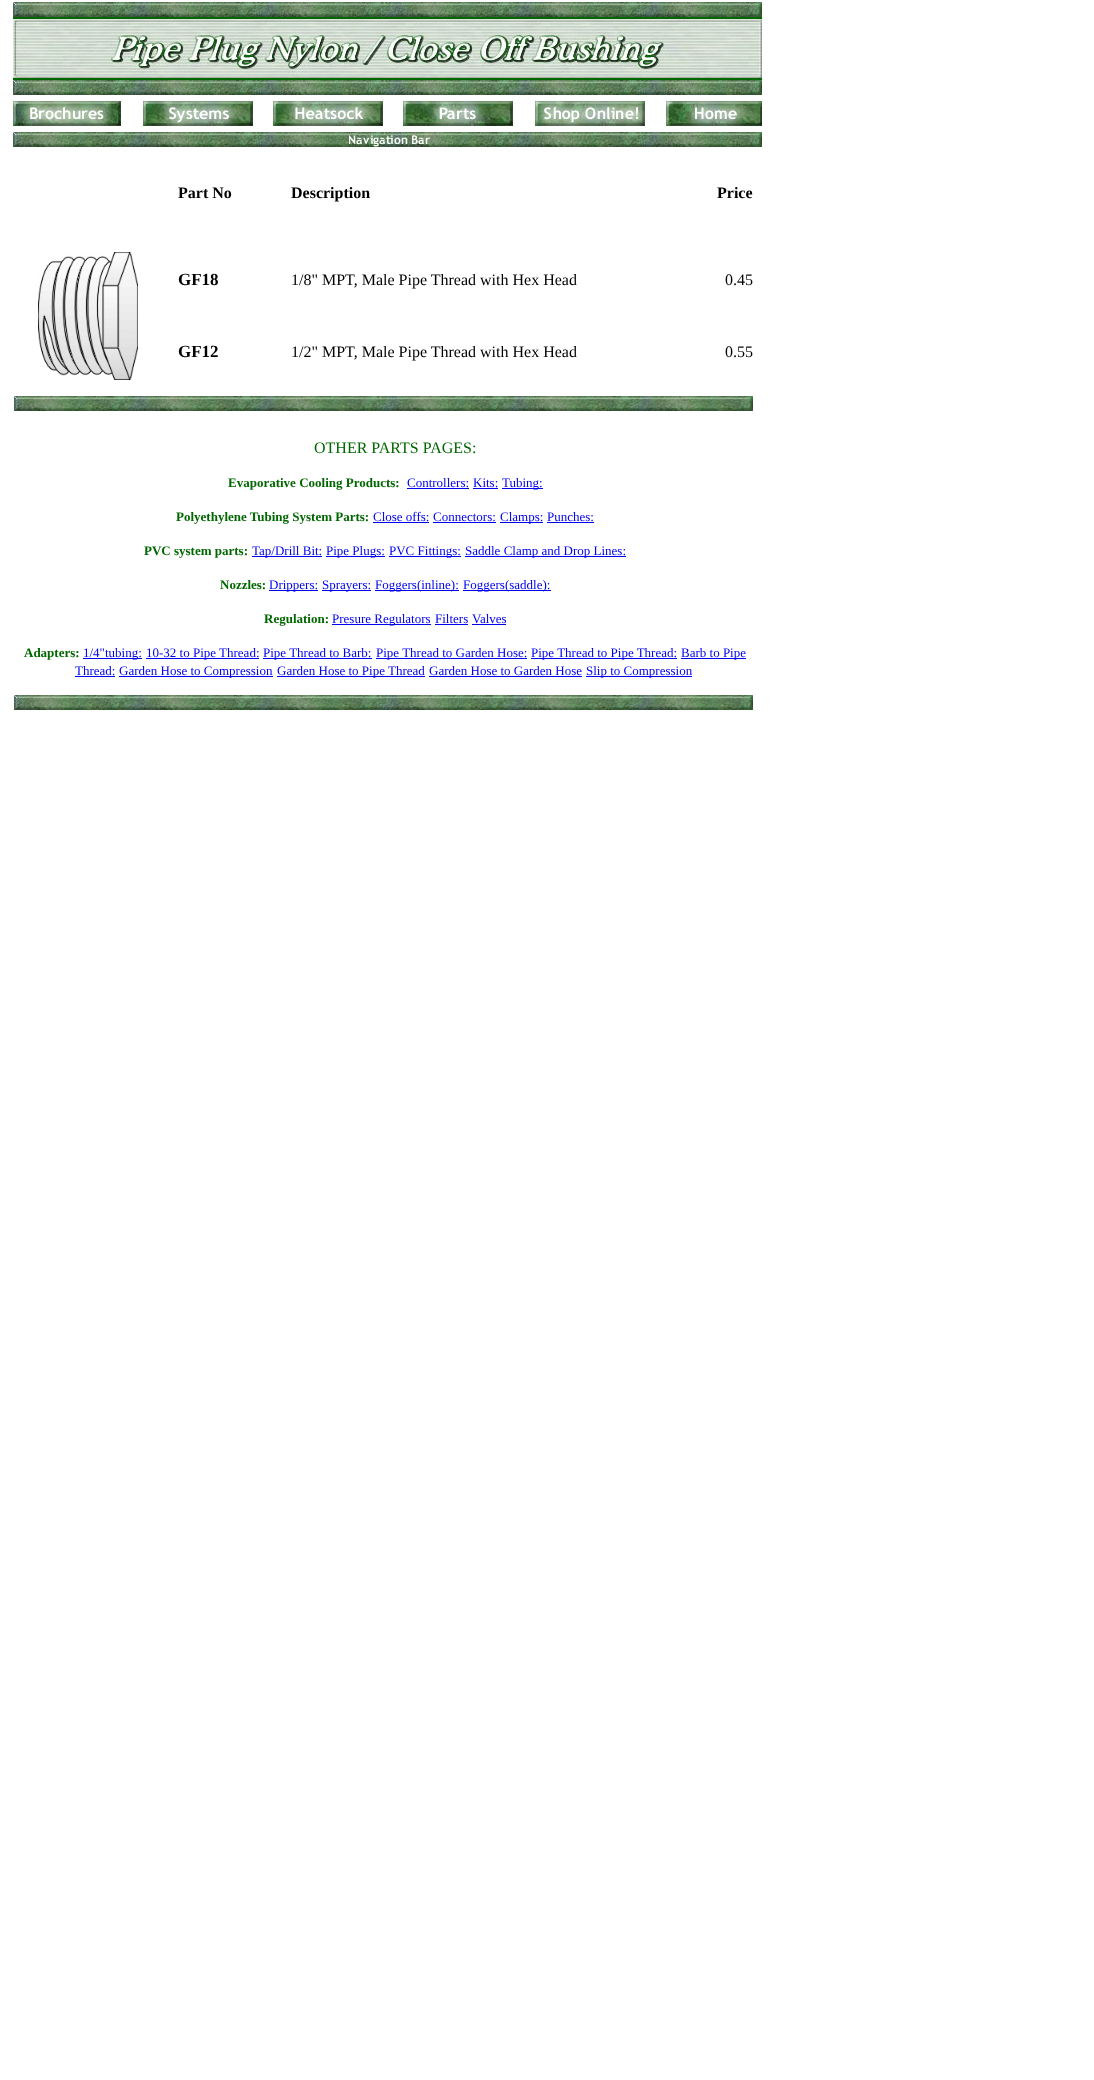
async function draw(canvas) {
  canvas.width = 1094;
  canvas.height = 2080;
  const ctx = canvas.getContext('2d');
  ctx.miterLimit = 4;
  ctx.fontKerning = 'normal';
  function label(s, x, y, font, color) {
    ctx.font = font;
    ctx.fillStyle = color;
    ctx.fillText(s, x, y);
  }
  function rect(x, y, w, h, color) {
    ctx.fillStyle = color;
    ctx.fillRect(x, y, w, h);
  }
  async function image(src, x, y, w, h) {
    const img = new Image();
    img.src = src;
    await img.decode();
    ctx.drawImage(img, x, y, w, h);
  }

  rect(0, 0, 1094, 2080, '#fff');
  await image('assets/img1.png', 13, 2, 749, 15);
  rect(13, 17, 749, 63, '#060');
  await image('assets/img2.png', 13, 19, 749, 59);
  await image('assets/img1.png', 13, 80, 749, 15);
  await image('assets/img3.png', 13, 101, 108, 25);
  await image('assets/img4.png', 143, 101, 110, 25);
  await image('assets/img5.png', 273, 101, 110, 25);
  await image('assets/img6.png', 403, 101, 110, 25);
  await image('assets/img7.png', 535, 101, 110, 25);
  await image('assets/img8.png', 666, 101, 96, 25);
  await image('assets/img9.png', 13, 132, 749, 15);
  label('Part No', 178, 198, 'bold 16px Liberation Serif', '#000');
  label('Description', 291, 198, 'bold 16px Liberation Serif', '#000');
  label('Price', 717, 198, 'bold 16px Liberation Serif', '#000');
  await image('assets/img10.png', 38, 252, 100, 128);
  label('GF18', 178, 285, 'bold 17px Liberation Serif', '#000');
  label('1/8" MPT, Male Pipe Thread with Hex Head', 291, 285, '16px Liberation Serif', '#000');
  label('0.45', 725, 285, '16px Liberation Serif', '#000');
  label('GF12', 178, 357, 'bold 17px Liberation Serif', '#000');
  label('1/2" MPT, Male Pipe Thread with Hex Head', 291, 357, '16px Liberation Serif', '#000');
  label('0.55', 725, 357, '16px Liberation Serif', '#000');
  await image('assets/img11.png', 14, 396, 739, 15);
  label('OTHER PARTS PAGES:', 314, 453, '16px Liberation Serif', '#060');
  label('Evaporative Cooling Products:', 228, 487, 'bold 13px Liberation Serif', '#060');
  label('Controllers:', 407, 487, '13px Liberation Serif', '#00e');
  rect(407, 488, 62, 1, '#00e');
  label('Kits:', 473, 487, '13px Liberation Serif', '#00e');
  rect(473, 488, 25, 1, '#00e');
  rect(502, 488, 41, 1, '#00e');
  label('Tubing:', 502, 487, '13px Liberation Serif', '#00e');
  label('Polyethylene Tubing System Parts:', 176, 521, 'bold 13px Liberation Serif', '#060');
  label('Close offs:', 373, 521, '13px Liberation Serif', '#00e');
  rect(373, 522, 56, 1, '#00e');
  label('Connectors:', 433, 521, '13px Liberation Serif', '#00e');
  rect(433, 522, 63, 1, '#00e');
  rect(500, 522, 43, 1, '#00e');
  label('Clamps:', 500, 521, '13px Liberation Serif', '#00e');
  label('Punches:', 547, 521, '13px Liberation Serif', '#00e');
  rect(547, 522, 47, 1, '#00e');
  label('PVC system parts:', 144, 555, 'bold 13px Liberation Serif', '#060');
  rect(252, 556, 70, 1, '#00e');
  label('Tap/Drill Bit:', 252, 555, '13px Liberation Serif', '#00e');
  rect(326, 556, 59, 1, '#00e');
  label('Pipe Plugs:', 326, 555, '13px Liberation Serif', '#00e');
  rect(389, 556, 72, 1, '#00e');
  label('PVC Fittings:', 389, 555, '13px Liberation Serif', '#00e');
  rect(465, 556, 161, 1, '#00e');
  label('Saddle Clamp and Drop Lines:', 465, 555, '13px Liberation Serif', '#00e');
  label('Nozzles:', 220, 589, 'bold 13px Liberation Serif', '#060');
  rect(269, 590, 49, 1, '#00e');
  label('Drippers:', 269, 589, '13px Liberation Serif', '#00e');
  rect(322, 590, 49, 1, '#00e');
  label('Sprayers:', 322, 589, '13px Liberation Serif', '#00e');
  rect(375, 590, 84, 1, '#00e');
  label('Foggers(inline):', 375, 589, '13px Liberation Serif', '#00e');
  rect(463, 590, 88, 1, '#00e');
  label('Foggers(saddle):', 463, 589, '13px Liberation Serif', '#00e');
  label('Regulation:', 264, 623, 'bold 13px Liberation Serif', '#060');
  rect(332, 624, 99, 1, '#00e');
  label('Presure Regulators', 332, 623, '13px Liberation Serif', '#00e');
  label('Filters', 435, 623, '13px Liberation Serif', '#00e');
  rect(435, 624, 33, 1, '#00e');
  label('Valves', 472, 623, '13px Liberation Serif', '#00e');
  rect(472, 624, 34, 1, '#00e');
  label('Adapters:', 24, 657, 'bold 13px Liberation Serif', '#060');
  rect(83, 658, 59, 1, '#00e');
  label('1/4"tubing:', 83, 657, '13px Liberation Serif', '#00e');
  rect(146, 658, 113, 1, '#00e');
  label('10-32 to Pipe Thread:', 146, 657, '13px Liberation Serif', '#00e');
  rect(263, 658, 109, 1, '#00e');
  label('Pipe Thread to Barb:', 263, 657, '13px Liberation Serif', '#00e');
  rect(376, 658, 151, 1, '#00e');
  label('Pipe Thread to Garden Hose:', 376, 657, '13px Liberation Serif', '#00e');
  rect(531, 658, 146, 1, '#00e');
  label('Pipe Thread to Pipe Thread:', 531, 657, '13px Liberation Serif', '#00e');
  rect(681, 658, 65, 1, '#00e');
  label('Barb to Pipe', 681, 657, '13px Liberation Serif', '#00e');
  label('Thread:', 75, 675, '13px Liberation Serif', '#00e');
  rect(75, 676, 40, 1, '#00e');
  rect(119, 676, 154, 1, '#00e');
  label('Garden Hose to Compression', 119, 675, '13px Liberation Serif', '#00e');
  rect(277, 676, 148, 1, '#00e');
  label('Garden Hose to Pipe Thread', 277, 675, '13px Liberation Serif', '#00e');
  label('Garden Hose to Garden Hose', 429, 675, '13px Liberation Serif', '#00e');
  rect(429, 676, 153, 1, '#00e');
  rect(586, 676, 106, 1, '#00e');
  label('Slip to Compression', 586, 675, '13px Liberation Serif', '#00e');
  await image('assets/img11.png', 14, 695, 739, 15);
}

draw(document.querySelector('canvas'));
